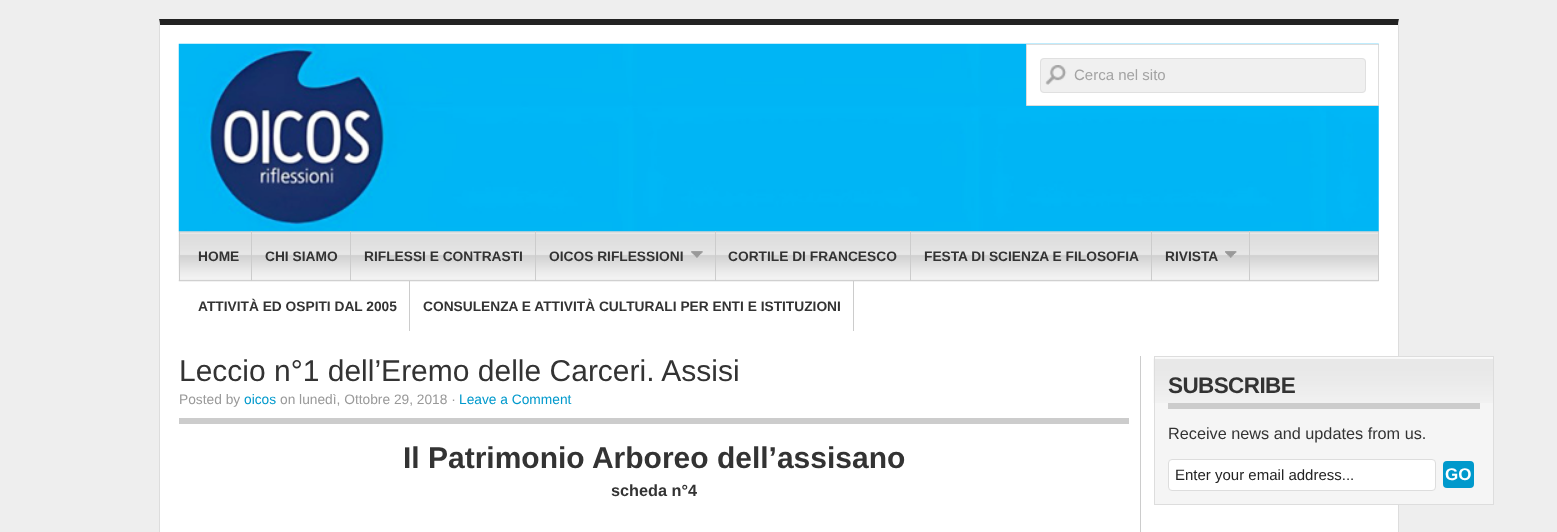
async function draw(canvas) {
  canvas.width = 1557;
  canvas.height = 532;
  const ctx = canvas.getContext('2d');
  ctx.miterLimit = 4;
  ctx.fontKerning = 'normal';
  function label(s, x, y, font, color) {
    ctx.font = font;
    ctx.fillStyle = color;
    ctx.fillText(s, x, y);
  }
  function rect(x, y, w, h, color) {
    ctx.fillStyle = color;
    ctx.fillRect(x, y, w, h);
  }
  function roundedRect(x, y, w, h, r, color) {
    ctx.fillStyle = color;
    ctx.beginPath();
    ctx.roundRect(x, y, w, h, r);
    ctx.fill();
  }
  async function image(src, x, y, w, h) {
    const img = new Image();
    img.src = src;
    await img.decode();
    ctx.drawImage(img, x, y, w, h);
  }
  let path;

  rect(0, 0, 1557, 532, '#eee');
  rect(160, 25, 1238, 507, '#fff');
  ctx.fillStyle = '#222';
  path = new Path2D('M159 19H1399L1398 25H160Z');
  ctx.fill(path);
  ctx.fillStyle = '#ddd';
  path = new Path2D('M1399 19V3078L1398 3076V25Z');
  ctx.fill(path);
  path = new Path2D('M159 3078V19L160 25V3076Z');
  ctx.fill(path);
  await image('assets/img3.png', 178, 231, 1201, 51);
  rect(1378, 231, 1, 50, '#ccc');
  rect(179, 231, 1, 50, '#ccc');
  await image('assets/img1.png', 178, 43, 1201, 189);
  ctx.fillStyle = '#fff';
  ctx.beginPath();
  ctx.rect(1026.5, 44.5, 352, 61);
  ctx.fill();
  ctx.strokeStyle = '#ddd';
  ctx.stroke();
  roundedRect(1040, 58, 326, 35, 4, '#f0f0f0');
  await image('assets/img2.png', 1045, 65, 22, 20);
  ctx.beginPath();
  ctx.roundRect(1040.5, 58.5, 325, 34, 3.5);
  ctx.strokeStyle = '#e0e0e0';
  ctx.stroke();
  label('Cerca nel sito', 1074, 80, '15px Liberation Sans', '#a3a3a3');
  rect(251, 231, 1, 50, '#ccc');
  label('HOME', 198, 261, 'bold 13.75px Liberation Sans', '#333');
  rect(350, 231, 1, 50, '#ccc');
  label('CHI SIAMO', 265, 261, 'bold 13.75px Liberation Sans', '#333');
  rect(535, 231, 1, 50, '#ccc');
  label('RIFLESSI E CONTRASTI', 364, 261, 'bold 13.75px Liberation Sans', '#333');
  rect(715, 231, 1, 50, '#ccc');
  label('OICOS RIFLESSIONI', 549, 261, 'bold 13.75px Liberation Sans', '#333');
  await image('assets/img4.png', 691, 251, 12, 7);
  await image('assets/img5.png', 691, 251, 12, 7);
  rect(910, 231, 1, 50, '#ccc');
  label('CORTILE DI FRANCESCO', 728, 261, 'bold 13.75px Liberation Sans', '#333');
  rect(1151, 231, 1, 50, '#ccc');
  label('FESTA DI SCIENZA E FILOSOFIA', 924, 261, 'bold 13.75px Liberation Sans', '#333');
  rect(1249, 231, 1, 50, '#ccc');
  label('RIVISTA', 1165, 261, 'bold 13.75px Liberation Sans', '#333');
  await image('assets/img6.png', 1225, 251, 12, 7);
  await image('assets/img7.png', 1225, 251, 12, 7);
  rect(409, 281, 1, 50, '#ccc');
  label('ATTIVITÀ ED OSPITI DAL 2005', 198, 311, 'bold 13.75px Liberation Sans', '#333');
  rect(853, 281, 1, 50, '#ccc');
  label('CONSULENZA E ATTIVITÀ CULTURALI PER ENTI E ISTITUZIONI', 423, 311, 'bold 13.75px Liberation Sans', '#333');
  rect(1140, 356, 1, 176, '#ccc');
  rect(179, 418, 950, 6, '#ccc');
  label('Leccio n°1 dell’Eremo delle Carceri. Assisi', 179, 381, '30px Liberation Sans', '#333');
  label('Posted by', 179, 404, '13.75px Liberation Sans', '#999');
  label('oicos', 244, 404, '13.75px Liberation Sans', '#09c');
  label('on lunedì, Ottobre 29, 2018 ·', 280, 404, '13.75px Liberation Sans', '#999');
  label('Leave a Comment', 459, 404, '13.75px Liberation Sans', '#09c');
  label('Il Patrimonio Arboreo dell’assisano', 403, 468, 'bold 30px Liberation Sans', '#333');
  label('scheda n°4', 611, 496, 'bold 16.25px Liberation Sans', '#333');
  rect(1155, 357, 338, 147, '#f5f5f5');
  await image('assets/img8.png', 1153, 357, 340, 46);
  ctx.strokeStyle = '#ddd';
  ctx.strokeRect(1154.5, 356.5, 339, 148);
  rect(1168, 403, 312, 6, '#ccc');
  ctx.letterSpacing = '-0.6px';
  label('SUBSCRIBE', 1168, 393, 'bold 22.5px Liberation Sans', '#333');
  ctx.letterSpacing = '0px';
  label('Receive news and updates from us.', 1168, 439, '16.25px Liberation Sans', '#333');
  ctx.fillStyle = '#fff';
  ctx.beginPath();
  ctx.roundRect(1168.5, 459.5, 267, 31, 3.5);
  ctx.fill();
  ctx.stroke();
  label('Enter your email address...', 1175, 480, '15px Liberation Sans', '#222');
  roundedRect(1443, 461, 31, 27, 4, '#09c');
  label('GO', 1445, 480, 'bold 17px Liberation Sans', '#fff');
}

draw(document.querySelector('canvas'));
